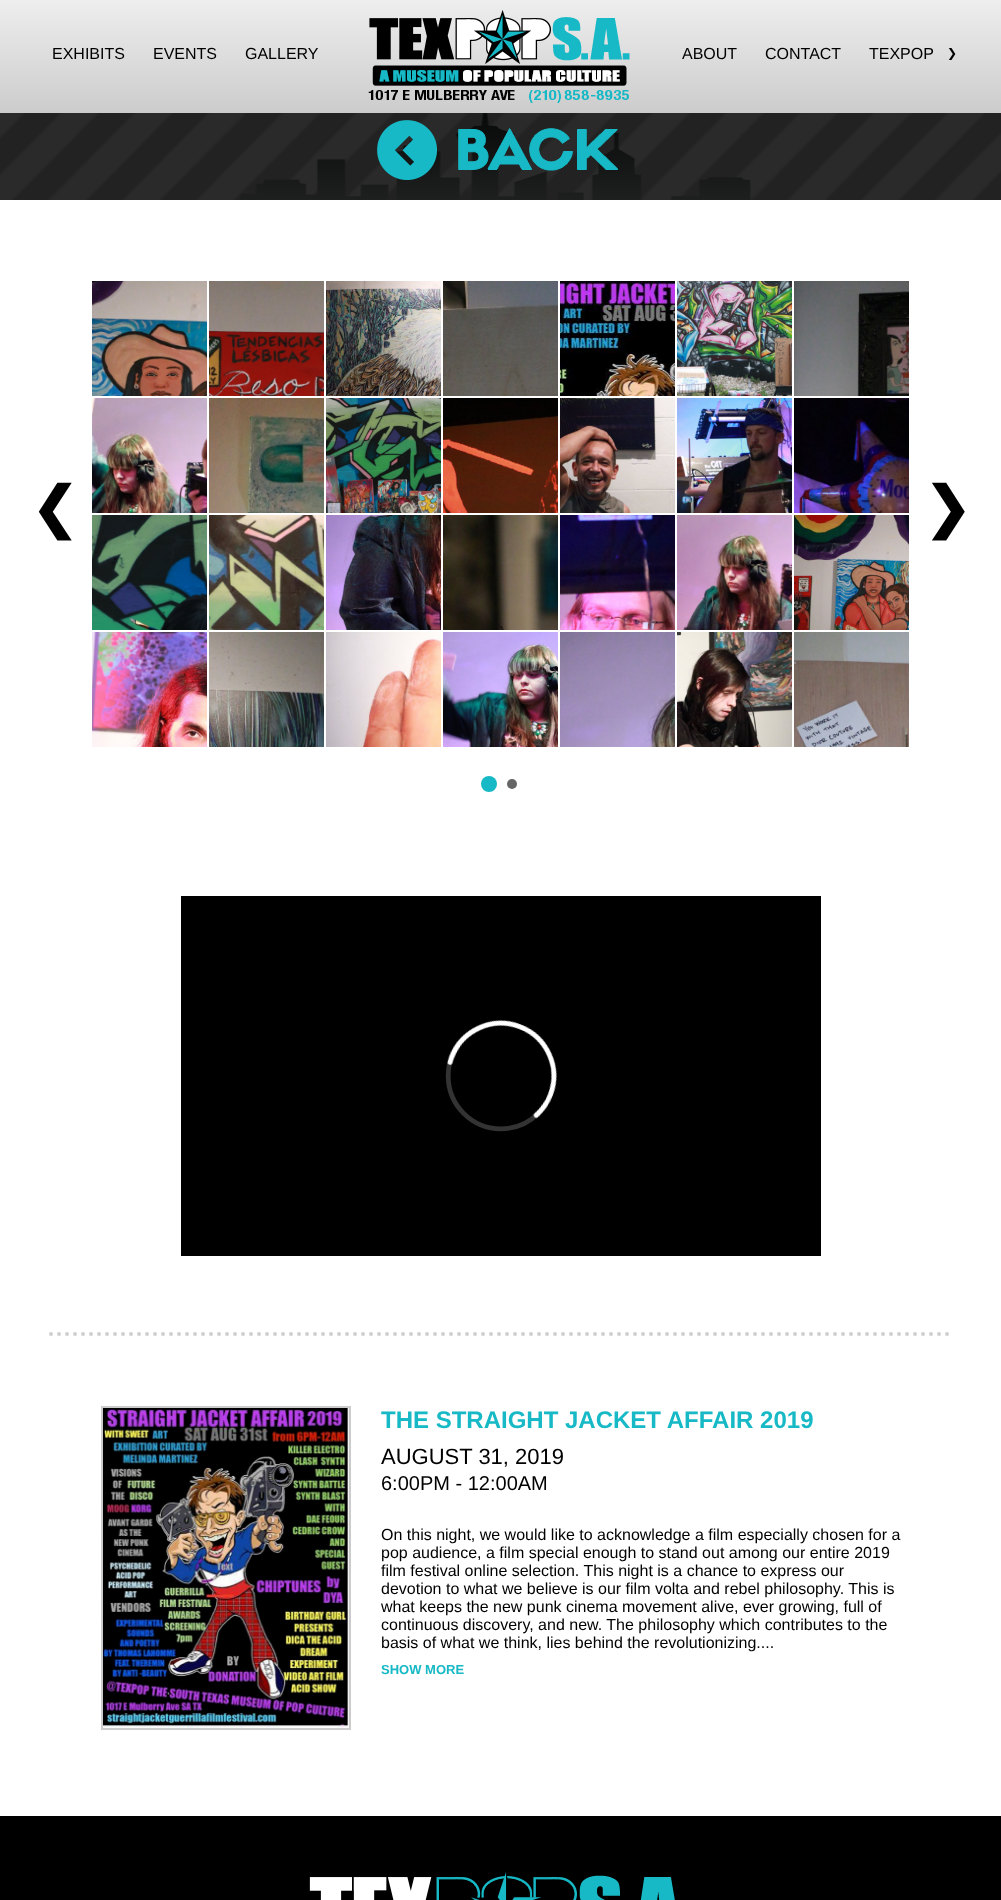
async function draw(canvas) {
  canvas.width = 1001;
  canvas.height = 1900;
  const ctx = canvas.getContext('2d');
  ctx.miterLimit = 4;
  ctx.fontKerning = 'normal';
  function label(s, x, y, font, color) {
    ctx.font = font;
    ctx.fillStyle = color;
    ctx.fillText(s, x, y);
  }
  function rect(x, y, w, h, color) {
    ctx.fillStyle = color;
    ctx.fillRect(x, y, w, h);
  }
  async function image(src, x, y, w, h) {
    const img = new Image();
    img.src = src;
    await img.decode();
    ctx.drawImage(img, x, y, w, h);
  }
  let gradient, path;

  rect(0, 0, 1001, 1900, '#fff');
  gradient = ctx.createLinearGradient(501, 0, 501, 113);
  gradient.addColorStop(0, '#eee');
  gradient.addColorStop(1, '#ccc');
  ctx.fillStyle = gradient;
  ctx.fillRect(0, 0, 1001, 113);
  label('EXHIBITS', 52, 59, '16px Liberation Sans', '#000');
  label('EVENTS', 153, 59, '16px Liberation Sans', '#000');
  label('GALLERY', 245, 59, '16px Liberation Sans', '#000');
  await image('assets/img1.png', 368, 10, 262, 93);
  label('ABOUT', 682, 59, '16px Liberation Sans', '#000');
  label('CONTACT', 765, 59, '16px Liberation Sans', '#000');
  label('TEXPOP', 869, 59, '16px Liberation Sans', '#000');
  label('❯', 947, 57, '12px DejaVu Sans', '#000');
  await image('assets/img2.png', 0, 113, 1001, 87);
  await image('assets/img3.png', 377, 120, 60, 60);
  await image('assets/img4.png', 458, 128, 160, 43);
  label('❮', 31, 527, 'bold 56px DejaVu Sans', '#000');
  await image('assets/img5.png', 92, 281, 115, 115);
  await image('assets/img6.png', 209, 281, 115, 115);
  await image('assets/img7.png', 326, 281, 115, 115);
  await image('assets/img8.png', 443, 281, 115, 115);
  await image('assets/img9.png', 560, 281, 115, 115);
  await image('assets/img10.png', 677, 281, 115, 115);
  await image('assets/img11.png', 794, 281, 115, 115);
  await image('assets/img12.png', 92, 398, 115, 115);
  await image('assets/img13.png', 209, 398, 115, 115);
  await image('assets/img14.png', 326, 398, 115, 115);
  await image('assets/img15.png', 443, 398, 115, 115);
  await image('assets/img16.png', 560, 398, 115, 115);
  await image('assets/img17.png', 677, 398, 115, 115);
  await image('assets/img18.png', 794, 398, 115, 115);
  await image('assets/img19.png', 92, 515, 115, 115);
  await image('assets/img20.png', 209, 515, 115, 115);
  await image('assets/img21.png', 326, 515, 115, 115);
  await image('assets/img22.png', 443, 515, 115, 115);
  await image('assets/img23.png', 560, 515, 115, 115);
  await image('assets/img24.png', 677, 515, 115, 115);
  await image('assets/img25.png', 794, 515, 115, 115);
  await image('assets/img26.png', 92, 632, 115, 115);
  await image('assets/img27.png', 209, 632, 115, 115);
  await image('assets/img28.png', 326, 632, 115, 115);
  await image('assets/img29.png', 443, 632, 115, 115);
  await image('assets/img30.png', 560, 632, 115, 115);
  await image('assets/img31.png', 677, 632, 115, 115);
  await image('assets/img32.png', 794, 632, 115, 115);
  label('❯', 924, 527, 'bold 56px DejaVu Sans', '#000');
  ctx.fillStyle = '#16b9c5';
  ctx.beginPath();
  ctx.arc(489, 784, 8, 0, 2 * Math.PI);
  ctx.fill();
  ctx.fillStyle = '#666';
  ctx.beginPath();
  ctx.arc(512, 784, 5, 0, 2 * Math.PI);
  ctx.fill();
  await image('assets/img33.png', 181, 896, 640, 360);
  path = new Path2D('M51 1334H951');
  ctx.strokeStyle = '#cfcfcf';
  ctx.lineWidth = 4;
  ctx.lineCap = 'round';
  ctx.setLineDash([0, 8]);
  ctx.stroke(path);
  ctx.strokeStyle = '#ccc';
  ctx.lineWidth = 2;
  ctx.setLineDash([]);
  ctx.strokeRect(102, 1407, 248, 322);
  await image('assets/img34.png', 103, 1408, 246, 320);
  label('THE STRAIGHT JACKET AFFAIR 2019', 381, 1428, 'bold 24px Liberation Sans', '#16b9c5');
  label('AUGUST 31, 2019', 381, 1464, '22px Liberation Sans', '#000');
  label('6:00PM - 12:00AM', 381, 1490, '20px Liberation Sans', '#000');
  label('On this night, we would like to acknowledge a film especially chosen for a', 381, 1540, '16px Liberation Sans', '#000');
  label('pop audience, a film special enough to stand out among our entire 2019', 381, 1558, '16px Liberation Sans', '#000');
  label('film festival online selection. This night is a chance to express our', 381, 1576, '16px Liberation Sans', '#000');
  label('devotion to what we believe is our film volta and rebel philosophy. This is', 381, 1594, '16px Liberation Sans', '#000');
  label('what keeps the new punk cinema movement alive, ever growing, full of', 381, 1612, '16px Liberation Sans', '#000');
  label('continuous discovery, and new. The philosophy which contributes to the', 381, 1630, '16px Liberation Sans', '#000');
  label('basis of what we think, lies behind the revolutionizing....', 381, 1648, '16px Liberation Sans', '#000');
  label('SHOW MORE', 381, 1674, 'bold 13px Liberation Sans', '#16b9c5');
  rect(0, 1816, 1001, 84, '#000');
  await image('assets/img35.png', 309, 1872, 366, 28);
}

draw(document.querySelector('canvas'));
